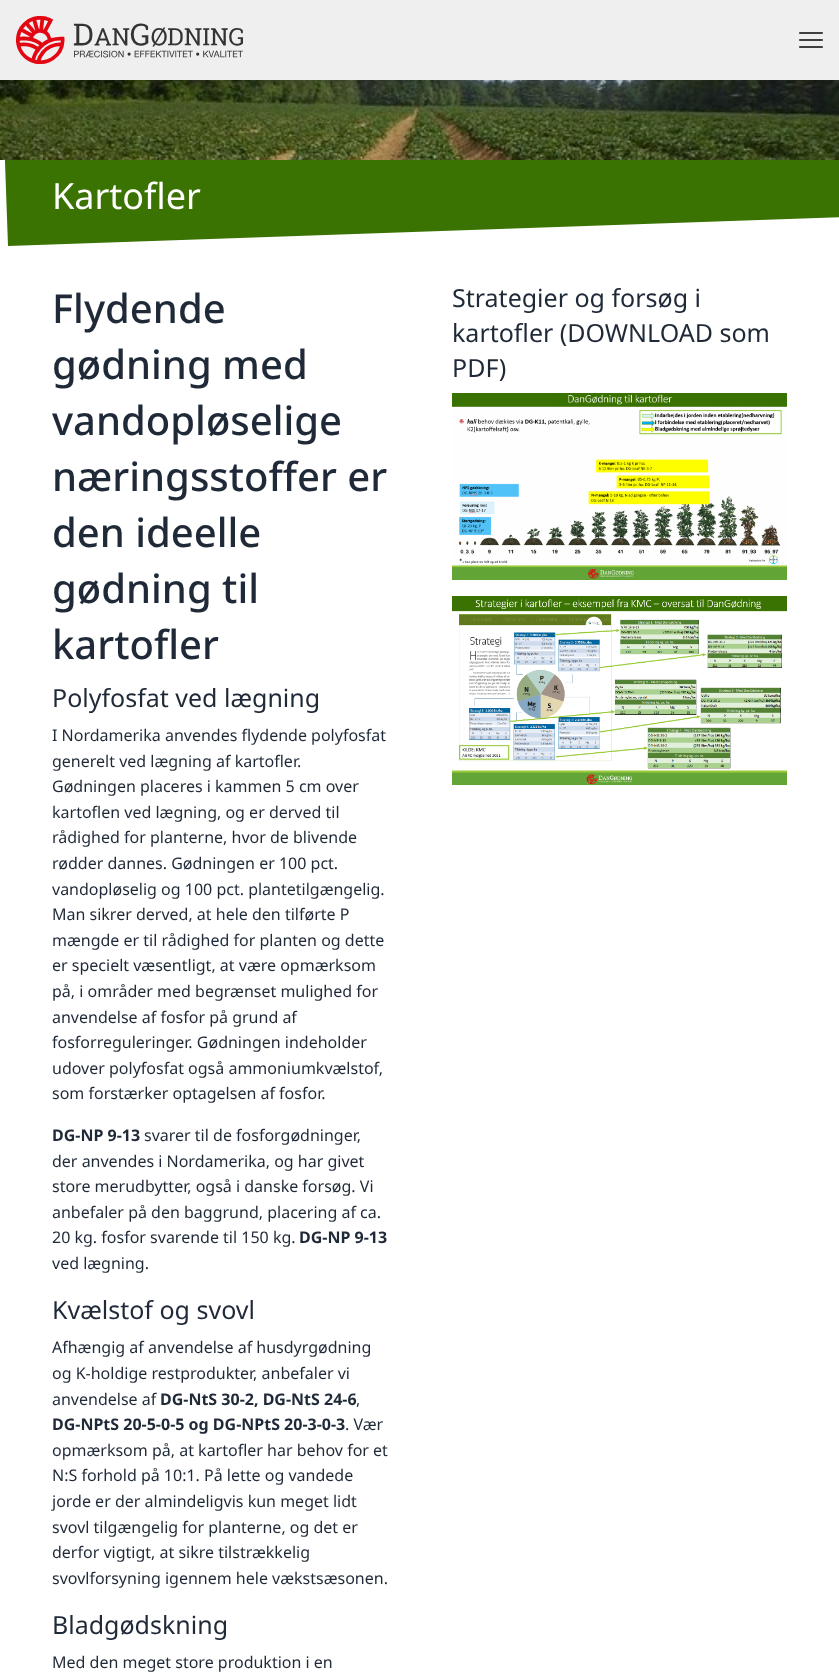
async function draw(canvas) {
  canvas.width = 839;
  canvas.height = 1679;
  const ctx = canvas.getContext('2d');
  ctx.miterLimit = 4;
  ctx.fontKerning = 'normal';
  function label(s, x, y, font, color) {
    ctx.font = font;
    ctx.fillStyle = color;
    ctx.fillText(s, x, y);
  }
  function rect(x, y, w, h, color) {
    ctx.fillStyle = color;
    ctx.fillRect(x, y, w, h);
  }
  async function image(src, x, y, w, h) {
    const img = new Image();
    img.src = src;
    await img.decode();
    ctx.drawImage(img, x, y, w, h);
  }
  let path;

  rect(0, 0, 839, 1679, '#fff');
  ctx.fillStyle = '#3b7302';
  path = new Path2D('M3 106L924 74L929 214L8 246Z');
  ctx.fill(path);
  await image('assets/img3.png', 0, 80, 839, 80);
  ctx.fillStyle = '#0000001a';
  ctx.filter = 'blur(2px)';
  ctx.beginPath();
  ctx.rect(2, 4, 835, 76);
  ctx.fill();
  ctx.filter = 'none';
  ctx.filter = 'blur(3px)';
  ctx.beginPath();
  ctx.rect(1, 5, 837, 78);
  ctx.fill();
  ctx.filter = 'none';
  rect(0, 0, 839, 80, '#efefef');
  await image('assets/img1.png', 16, 16, 227, 48);
  await image('assets/img2.png', 799, 32, 24, 16);
  label('Kartofler', 52, 209, '36px Noto Sans', '#fff');
  label('Flydende', 52, 323, '500 40px Noto Sans', '#1f2937');
  label('gødning med', 52, 379, '500 40px Noto Sans', '#1f2937');
  label('vandopløselige', 52, 435, '500 40px Noto Sans', '#1f2937');
  label('næringsstoffer er', 52, 491, '500 40px Noto Sans', '#1f2937');
  label('den ideelle', 52, 547, '500 40px Noto Sans', '#1f2937');
  label('gødning til', 52, 603, '500 40px Noto Sans', '#1f2937');
  label('kartofler', 52, 659, '500 40px Noto Sans', '#1f2937');
  label('Polyfosfat ved lægning', 52, 707, '25px Noto Sans', '#1f2937');
  label('I Nordamerika anvendes flydende polyfosfat', 52, 741, '16px Noto Sans', '#1f2937');
  label('generelt ved lægning af kartofler.', 52, 767, '16px Noto Sans', '#1f2937');
  label('Gødningen placeres i kammen 5 cm over', 52, 792, '16px Noto Sans', '#1f2937');
  label('kartoflen ved lægning, og er derved til', 52, 818, '16px Noto Sans', '#1f2937');
  label('rådighed for planterne, hvor de blivende', 52, 843, '16px Noto Sans', '#1f2937');
  label('rødder dannes. Gødningen er 100 pct.', 52, 869, '16px Noto Sans', '#1f2937');
  label('vandopløselig og 100 pct. plantetilgængelig.', 52, 895, '16px Noto Sans', '#1f2937');
  label('Man sikrer derved, at hele den tilførte P', 52, 920, '16px Noto Sans', '#1f2937');
  label('mængde er til rådighed for planten og dette', 52, 946, '16px Noto Sans', '#1f2937');
  label('er specielt væsentligt, at være opmærksom', 52, 971, '16px Noto Sans', '#1f2937');
  label('på, i områder med begrænset mulighed for', 52, 997, '16px Noto Sans', '#1f2937');
  label('anvendelse af fosfor på grund af', 52, 1023, '16px Noto Sans', '#1f2937');
  label('fosforreguleringer. Gødningen indeholder', 52, 1048, '16px Noto Sans', '#1f2937');
  label('udover polyfosfat også ammoniumkvælstof,', 52, 1074, '16px Noto Sans', '#1f2937');
  label('som forstærker optagelsen af fosfor.', 52, 1099, '16px Noto Sans', '#1f2937');
  label('DG-NP 9-13', 52, 1141, 'bold 16px Noto Sans', '#1f2937');
  label('svarer til de fosforgødninger,', 144, 1141, '16px Noto Sans', '#1f2937');
  label('der anvendes i Nordamerika, og har givet', 52, 1167, '16px Noto Sans', '#1f2937');
  label('store merudbytter, også i danske forsøg. Vi', 52, 1192, '16px Noto Sans', '#1f2937');
  label('anbefaler på den baggrund, placering af ca.', 52, 1218, '16px Noto Sans', '#1f2937');
  label('20 kg. fosfor svarende til 150 kg.', 52, 1243, '16px Noto Sans', '#1f2937');
  label('DG-NP 9-13', 299, 1243, 'bold 16px Noto Sans', '#1f2937');
  label('ved lægning.', 52, 1269, '16px Noto Sans', '#1f2937');
  label('Kvælstof og svovl', 52, 1319, '25px Noto Sans', '#1f2937');
  label('Afhængig af anvendelse af husdyrgødning', 52, 1353, '16px Noto Sans', '#1f2937');
  label('og K-holdige restprodukter, anbefaler vi', 52, 1379, '16px Noto Sans', '#1f2937');
  label('anvendelse af', 52, 1405, '16px Noto Sans', '#1f2937');
  label('DG-NtS 30-2, DG-NtS 24-6', 160, 1405, 'bold 16px Noto Sans', '#1f2937');
  label(',', 356, 1405, '16px Noto Sans', '#1f2937');
  label('DG-NPtS 20-5-0-5 og DG-NPtS 20-3-0-3', 52, 1430, 'bold 16px Noto Sans', '#1f2937');
  label('. Vær', 345, 1430, '16px Noto Sans', '#1f2937');
  label('opmærksom på, at kartofler har behov for et', 52, 1456, '16px Noto Sans', '#1f2937');
  label('N:S forhold på 10:1. På lette og vandede', 52, 1481, '16px Noto Sans', '#1f2937');
  label('jorde er der almindeligvis kun meget lidt', 52, 1507, '16px Noto Sans', '#1f2937');
  label('svovl tilgængelig for planterne, og det er', 52, 1533, '16px Noto Sans', '#1f2937');
  label('derfor vigtigt, at sikre tilstrækkelig', 52, 1558, '16px Noto Sans', '#1f2937');
  label('svovlforsyning igennem hele vækstsæsonen.', 52, 1584, '16px Noto Sans', '#1f2937');
  label('Bladgødskning', 52, 1634, '25px Noto Sans', '#1f2937');
  label('Med den meget store produktion i en', 52, 1668, '16px Noto Sans', '#1f2937');
  label('Strategier og forsøg i', 452, 307, '25px Noto Sans', '#1f2937');
  label('kartofler (DOWNLOAD som', 452, 342, '25px Noto Sans', '#1f2937');
  label('PDF)', 452, 377, '25px Noto Sans', '#1f2937');
  await image('assets/img4.png', 452, 393, 335, 187);
  await image('assets/img5.png', 452, 596, 335, 189);
}

draw(document.querySelector('canvas'));
